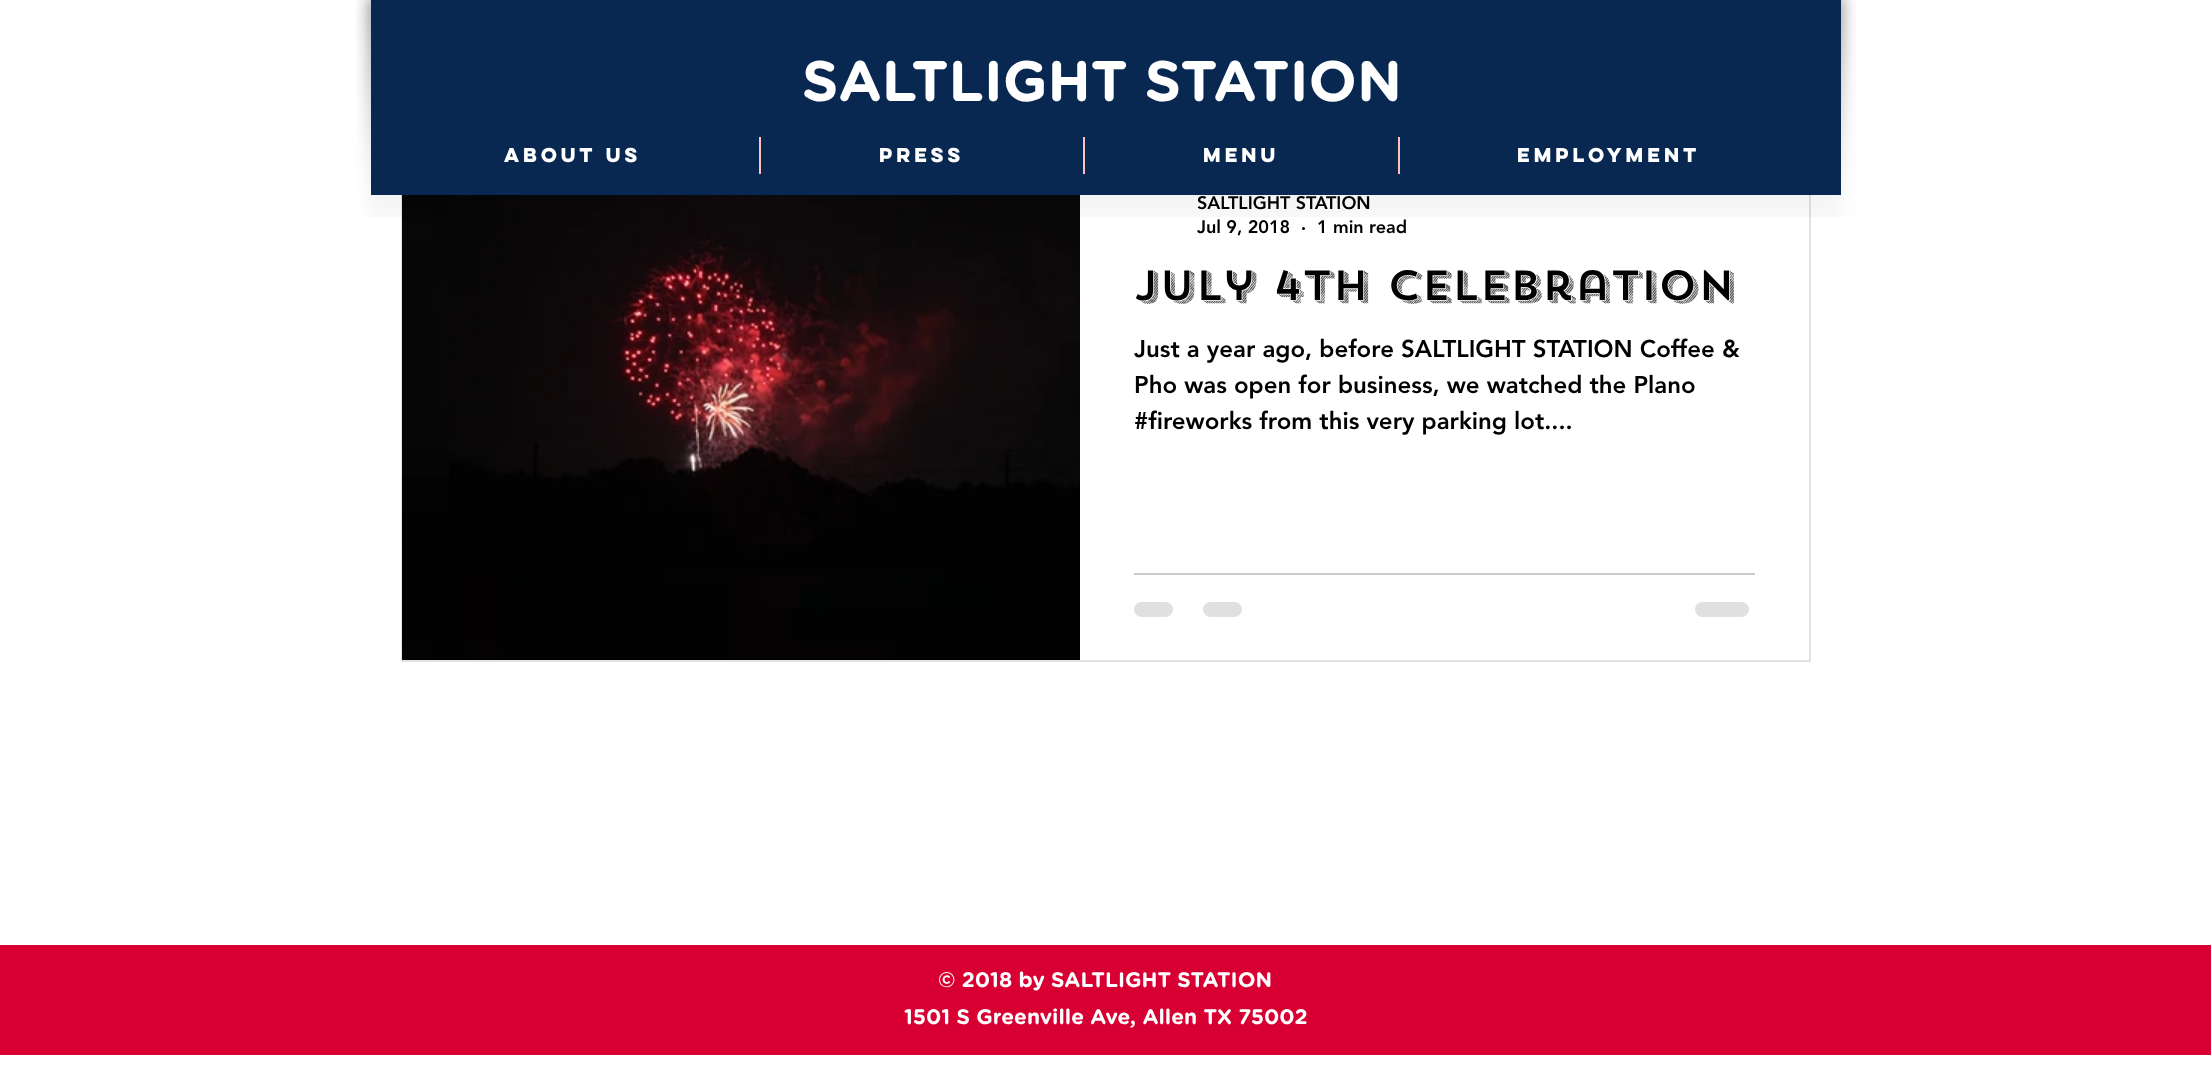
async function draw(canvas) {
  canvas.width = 2211;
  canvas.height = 1070;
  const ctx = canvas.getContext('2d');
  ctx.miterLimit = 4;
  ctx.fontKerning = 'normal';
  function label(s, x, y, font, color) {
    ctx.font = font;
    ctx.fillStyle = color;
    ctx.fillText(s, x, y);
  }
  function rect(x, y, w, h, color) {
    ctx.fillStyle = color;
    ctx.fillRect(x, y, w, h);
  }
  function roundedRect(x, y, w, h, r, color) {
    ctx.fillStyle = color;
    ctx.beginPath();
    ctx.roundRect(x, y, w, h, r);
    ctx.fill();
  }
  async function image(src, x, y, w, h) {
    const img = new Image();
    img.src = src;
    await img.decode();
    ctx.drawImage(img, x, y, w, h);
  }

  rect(0, 0, 2211, 1070, '#fff');
  ctx.strokeStyle = '#e3e3e3';
  ctx.lineWidth = 2;
  ctx.strokeRect(402, 151, 1408, 510);
  await image('assets/img1.png', 356, 0, 46, 217);
  await image('assets/img3.png', 1788, 0, 68, 217);
  rect(371, 0, 1470, 195, '#082851');
  label('SALTLIGHT STATION', 1197, 209, '900 18px "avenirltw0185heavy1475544"', '#000');
  await image('assets/img2.png', 1080, 195, 708, 22);
  label('SALTLIGHT STATION', 802, 101, 'bold 57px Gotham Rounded', '#fff');
  label('About Us', 504, 162, 'bold 18px "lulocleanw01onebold"', '#fff');
  rect(759, 137, 2, 37, '#fac1c1');
  label('Press', 879, 162, 'bold 18px "lulocleanw01onebold"', '#fff');
  rect(1083, 137, 2, 37, '#fac1c1');
  label('Menu', 1203, 162, 'bold 18px "lulocleanw01onebold"', '#fff');
  rect(1398, 137, 2, 37, '#fac1c1');
  label('Employment', 1517, 162, 'bold 18px "lulocleanw01onebold"', '#fff');
  await image('assets/img4.png', 402, 195, 678, 465);
  await image('assets/img5.png', 449, 195, 631, 380);
  label('Jul 9, 2018', 1197, 233, '900 18px "avenirltw0185heavy1475544"', '#000');
  ctx.beginPath();
  ctx.arc(1303.5, 228.5, 1.5, 0, 2 * Math.PI);
  ctx.fill();
  label('1 min read', 1317, 233, '900 18px "avenirltw0185heavy1475544"', '#000');
  label('JUly 4th Celebration', 1134, 300, '500 42px "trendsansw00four"', '#000');
  label('Just a year ago, before SALTLIGHT STATION Coffee &', 1134, 357, '900 24px "avenirltw0185heavy1475544"', '#000');
  label('Pho was open for business, we watched the Plano', 1134, 393, '900 24px "avenirltw0185heavy1475544"', '#000');
  label('#fireworks from this very parking lot....', 1134, 429, '900 24px "avenirltw0185heavy1475544"', '#000');
  rect(1134, 573, 621, 2, '#ccc');
  roundedRect(1134, 602, 39, 15, 7.5, '#e0e0e0');
  roundedRect(1203, 602, 39, 15, 7.5, '#e0e0e0');
  roundedRect(1695, 602, 54, 15, 7.5, '#e0e0e0');
  rect(0, 945, 2211, 110, '#d80032');
  label('© 2018 by SALTLIGHT STATION', 938, 987, 'bold 21px Gotham Rounded', '#fff');
  label('1501 S Greenville Ave, Allen TX 75002', 904, 1024, 'bold 21px Gotham Rounded', '#fff');
}

draw(document.querySelector('canvas'));
